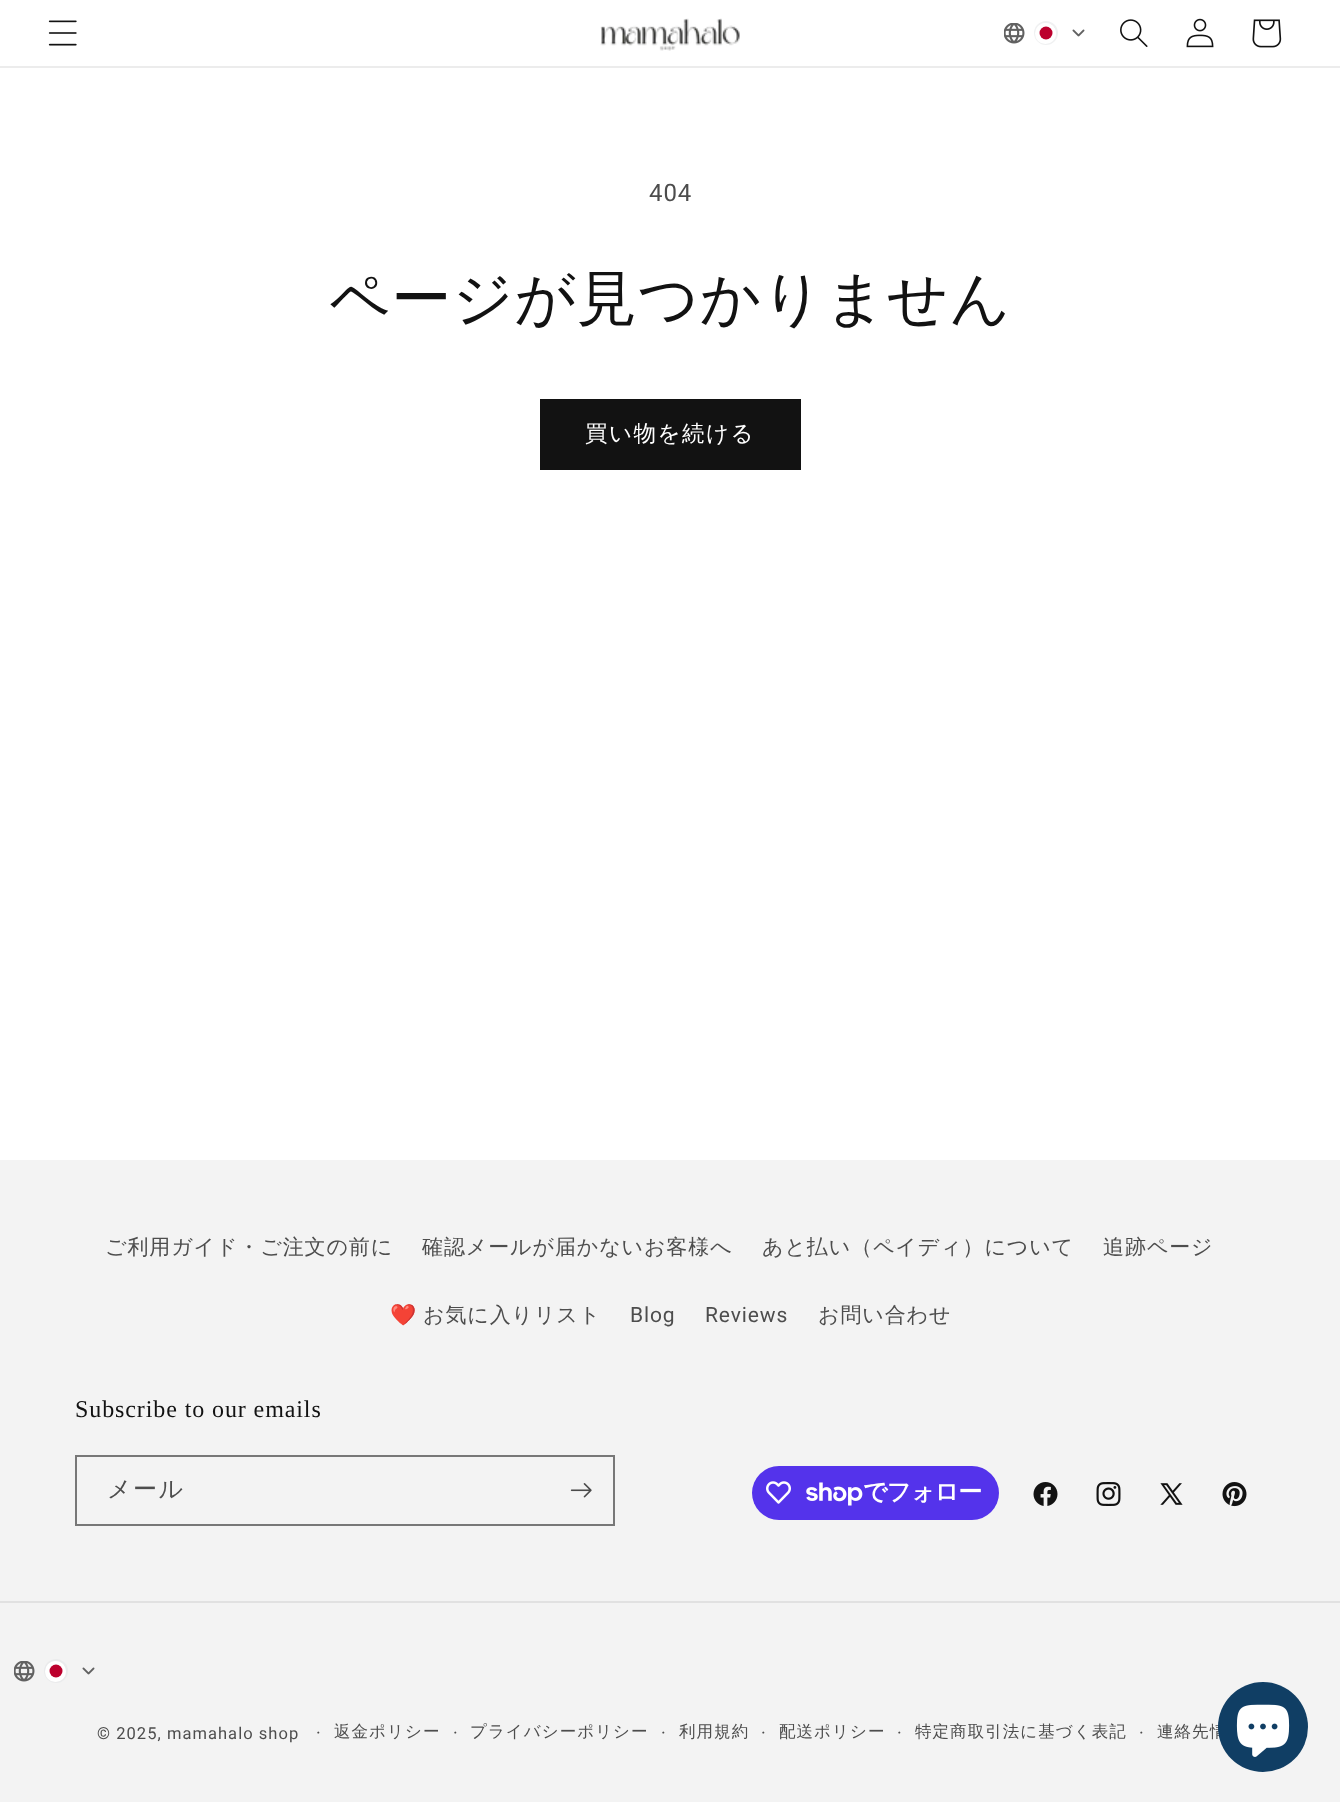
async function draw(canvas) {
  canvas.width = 1340;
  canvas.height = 1802;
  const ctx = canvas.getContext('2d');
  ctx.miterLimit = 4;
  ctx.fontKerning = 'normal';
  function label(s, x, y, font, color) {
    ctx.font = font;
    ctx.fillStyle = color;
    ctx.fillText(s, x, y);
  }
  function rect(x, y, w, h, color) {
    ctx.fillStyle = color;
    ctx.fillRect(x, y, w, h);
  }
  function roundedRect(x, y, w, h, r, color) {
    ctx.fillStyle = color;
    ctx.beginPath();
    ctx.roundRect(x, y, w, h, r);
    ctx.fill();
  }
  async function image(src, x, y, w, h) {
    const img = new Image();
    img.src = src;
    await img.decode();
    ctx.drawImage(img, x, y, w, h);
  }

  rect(0, 0, 1340, 1802, '#fff');
  rect(0, 66, 1340, 2, '#ececec');
  await image('assets/img1.png', 48, 20, 29, 26);
  await image('assets/img2.png', 600, 18, 140, 33);
  await image('assets/img3.png', 1004, 23, 21, 21);
  ctx.beginPath();
  ctx.arc(1046, 33, 11, 0, 2 * Math.PI);
  ctx.strokeStyle = '#f0f1f2';
  ctx.lineWidth = 2;
  ctx.stroke();
  ctx.fillStyle = '#fff';
  ctx.beginPath();
  ctx.arc(1045.5, 33.5, 10.5, 0, 2 * Math.PI);
  ctx.fill();
  ctx.fillStyle = '#bc002d';
  ctx.beginPath();
  ctx.arc(1046, 33, 6.5, 0, 2 * Math.PI);
  ctx.fill();
  await image('assets/img4.png', 1072, 29, 13, 8);
  await image('assets/img5.png', 1120, 19, 28, 28);
  await image('assets/img6.png', 1186, 18, 28, 30);
  await image('assets/img7.png', 1252, 19, 30, 29);
  ctx.letterSpacing = '0.9px';
  label('404', 649, 201, '24px Roboto', '#4d4d4d');
  label('ページが見つかりません', 329, 319, '500 60px WenQuanYi Zen Hei', '#121212');
  rect(540, 399, 261, 71, '#121212');
  ctx.letterSpacing = '1.5px';
  label('買い物を続ける', 585, 441, '500 22.5px WenQuanYi Zen Hei', '#fff');
  rect(0, 1160, 1340, 642, '#f3f3f3');
  ctx.letterSpacing = '0.9px';
  label('ご利用ガイド・ご注文の前に', 105, 1254, '500 21px WenQuanYi Zen Hei', '#4d4d4d');
  label('確認メールが届かないお客様へ', 422, 1254, '500 21px WenQuanYi Zen Hei', '#4d4d4d');
  label('あと払い（ペイディ）について', 762, 1254, '500 21px WenQuanYi Zen Hei', '#4d4d4d');
  label('追跡ページ', 1103, 1254, '500 21px WenQuanYi Zen Hei', '#4d4d4d');
  label('❤️', 390, 1322, '21px Noto Color Emoji', '#4d4d4d');
  label('お気に入りリスト', 423, 1322, '500 21px WenQuanYi Zen Hei', '#4d4d4d');
  label('Blog', 630, 1322, '21px Roboto', '#4d4d4d');
  label('Reviews', 705, 1322, '21px Roboto', '#4d4d4d');
  label('お問い合わせ', 818, 1322, '500 21px WenQuanYi Zen Hei', '#4d4d4d');
  label('Subscribe to our emails', 75, 1417, '24px Liberation Serif', '#121212');
  ctx.strokeStyle = '#777';
  ctx.strokeRect(76, 1456, 538, 69);
  ctx.letterSpacing = '1.5px';
  label('メール', 107, 1497, '500 24px WenQuanYi Zen Hei', '#4d4d4d');
  await image('assets/img8.png', 570, 1483, 22, 15);
  roundedRect(752, 1466, 247, 54, 27, '#5433eb');
  await image('assets/img9.png', 766, 1481, 25, 23);
  await image('assets/img10.png', 806, 1482, 57, 24);
  ctx.letterSpacing = '-0.75px';
  label('でフォロー', 863, 1500, 'bold 24px WenQuanYi Zen Hei', '#fff');
  await image('assets/img11.png', 1033, 1482, 25, 24);
  await image('assets/img12.png', 1096, 1482, 25, 24);
  await image('assets/img13.png', 1160, 1483, 23, 22);
  await image('assets/img14.png', 1222, 1482, 25, 25);
  rect(0, 1601, 1340, 2, '#e1e1e1');
  await image('assets/img15.png', 14, 1661, 21, 21);
  ctx.beginPath();
  ctx.arc(56, 1671, 11, 0, 2 * Math.PI);
  ctx.strokeStyle = '#eaebec';
  ctx.stroke();
  ctx.fillStyle = '#fff';
  ctx.beginPath();
  ctx.arc(55.5, 1671.5, 10.5, 0, 2 * Math.PI);
  ctx.fill();
  ctx.fillStyle = '#bc002d';
  ctx.beginPath();
  ctx.arc(56, 1671, 6.5, 0, 2 * Math.PI);
  ctx.fill();
  await image('assets/img16.png', 82, 1667, 13, 8);
  ctx.letterSpacing = '1.05px';
  label('© 2025, mamahalo shop', 97, 1739, '16.5px Roboto', '#4d4d4d');
  label('·', 316, 1739, '18px Roboto', '#4d4d4d');
  label('返金ポリシー', 334, 1737, '500 16.5px WenQuanYi Zen Hei', '#4d4d4d');
  label('·', 453, 1739, '18px Roboto', '#4d4d4d');
  label('プライバシーポリシー', 470, 1737, '500 16.5px WenQuanYi Zen Hei', '#4d4d4d');
  label('·', 661, 1739, '18px Roboto', '#4d4d4d');
  label('利用規約', 679, 1737, '500 16.5px WenQuanYi Zen Hei', '#4d4d4d');
  label('·', 761, 1739, '18px Roboto', '#4d4d4d');
  label('配送ポリシー', 779, 1737, '500 16.5px WenQuanYi Zen Hei', '#4d4d4d');
  label('·', 897, 1739, '18px Roboto', '#4d4d4d');
  label('特定商取引法に基づく表記', 915, 1737, '500 16.5px WenQuanYi Zen Hei', '#4d4d4d');
  label('·', 1139, 1739, '18px Roboto', '#4d4d4d');
  label('連絡先情', 1157, 1737, '500 16.5px WenQuanYi Zen Hei', '#4d4d4d');
  ctx.fillStyle = '#103e64';
  ctx.beginPath();
  ctx.arc(1263, 1727, 45, 0, 2 * Math.PI);
  ctx.fill();
  await image('assets/img17.png', 1236, 1704, 54, 53);
}

draw(document.querySelector('canvas'));
